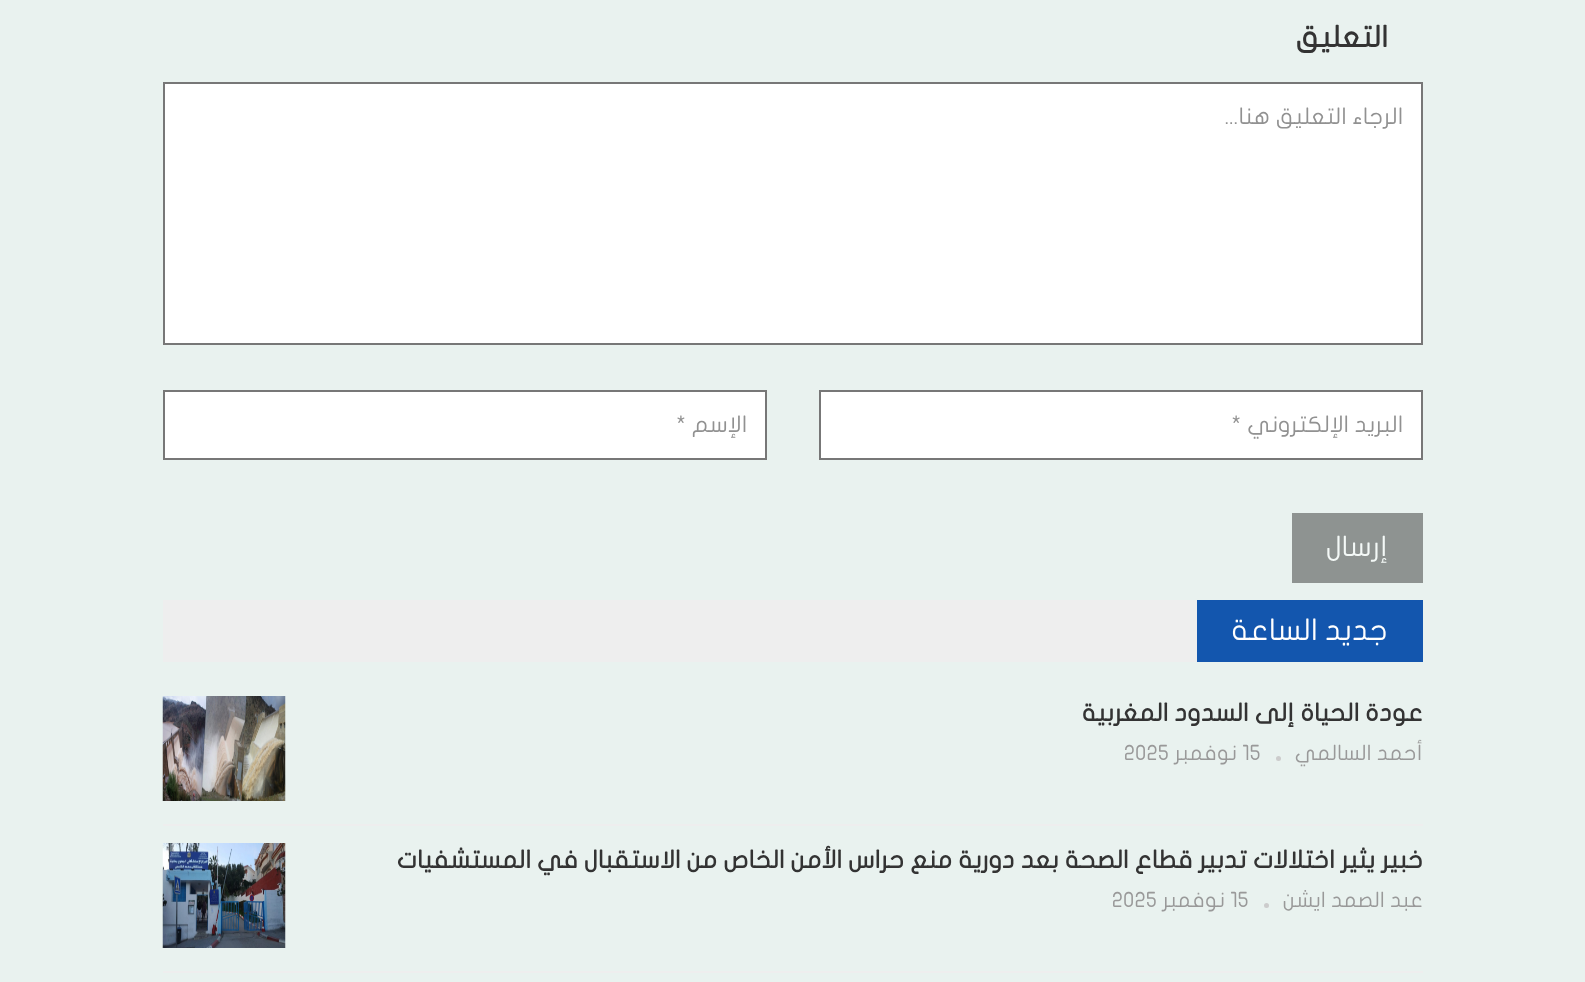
async function draw(canvas) {
  canvas.width = 1585;
  canvas.height = 982;
  const ctx = canvas.getContext('2d');
  ctx.miterLimit = 4;
  ctx.fontKerning = 'normal';
  function label(s, x, y, font, color) {
    ctx.font = font;
    ctx.fillStyle = color;
    ctx.fillText(s, x, y);
  }
  function rect(x, y, w, h, color) {
    ctx.fillStyle = color;
    ctx.fillRect(x, y, w, h);
  }
  async function image(src, x, y, w, h) {
    const img = new Image();
    img.src = src;
    await img.decode();
    ctx.drawImage(img, x, y, w, h);
  }

  rect(0, 0, 1585, 982, '#e9f2ef');
  ctx.direction = 'rtl';
  label('التعليق', 1388, 47, 'bold 29.75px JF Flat', '#333');
  ctx.fillStyle = '#fff';
  ctx.beginPath();
  ctx.rect(164, 83, 1258, 261);
  ctx.fill();
  ctx.strokeStyle = '#777';
  ctx.lineWidth = 2;
  ctx.stroke();
  label('الرجاء التعليق هنا...', 1403, 124, '22.75px JF Flat', '#919191');
  ctx.fillStyle = '#fff';
  ctx.beginPath();
  ctx.rect(820, 391, 602, 68);
  ctx.fill();
  ctx.stroke();
  label('البريد اﻹلكتروني *', 1403, 432, '22.75px JF Flat', '#919191');
  ctx.fillStyle = '#fff';
  ctx.beginPath();
  ctx.rect(164, 391, 602, 68);
  ctx.fill();
  ctx.stroke();
  label('اﻹسم *', 747, 432, '22.75px JF Flat', '#919191');
  rect(1292, 513, 131, 70, '#8e9391');
  label('إرسال', 1388, 556, '28px JF Flat', '#f4f9f7');
  rect(163, 600, 1034, 62, '#eee');
  rect(1197, 600, 226, 62, '#1356ae');
  label('جديد الساعة', 1388, 640, '29.75px JF Flat', '#fff');
  rect(163, 824, 1260, 2, '#eee');
  label('عودة الحياة إلى السدود المغربية', 1423, 721, 'bold 24.5px JF Flat', '#333');
  await image('assets/img1.png', 162, 696, 124, 105);
  label('أحمد السالمي', 1423, 760, '21px JF Flat', '#999');
  ctx.fillStyle = '#ccc';
  ctx.beginPath();
  ctx.arc(1278.5, 758.5, 2.5, 0, 2 * Math.PI);
  ctx.fill();
  ctx.direction = 'ltr';
  label('15', 1242, 760, '21px JF Flat', '#999');
  ctx.direction = 'rtl';
  label('نوفمبر', 1237, 760, '21px JF Flat', '#999');
  ctx.direction = 'ltr';
  label('2025', 1124, 760, '21px JF Flat', '#999');
  rect(163, 971, 1260, 2, '#eee');
  ctx.direction = 'rtl';
  label('خبير يثير اختلالات تدبير قطاع الصحة بعد دورية منع حراس الأمن الخاص من الاستقبال في المستشفيات', 1423, 868, 'bold 24.5px JF Flat', '#333');
  await image('assets/img2.png', 162, 843, 124, 105);
  label('عبد الصمد ايشن', 1423, 907, '21px JF Flat', '#999');
  ctx.fillStyle = '#ccc';
  ctx.beginPath();
  ctx.arc(1266.5, 905.5, 2.5, 0, 2 * Math.PI);
  ctx.fill();
  ctx.direction = 'ltr';
  label('15', 1230, 907, '21px JF Flat', '#999');
  ctx.direction = 'rtl';
  label('نوفمبر', 1225, 907, '21px JF Flat', '#999');
  ctx.direction = 'ltr';
  label('2025', 1112, 907, '21px JF Flat', '#999');
}

draw(document.querySelector('canvas'));
